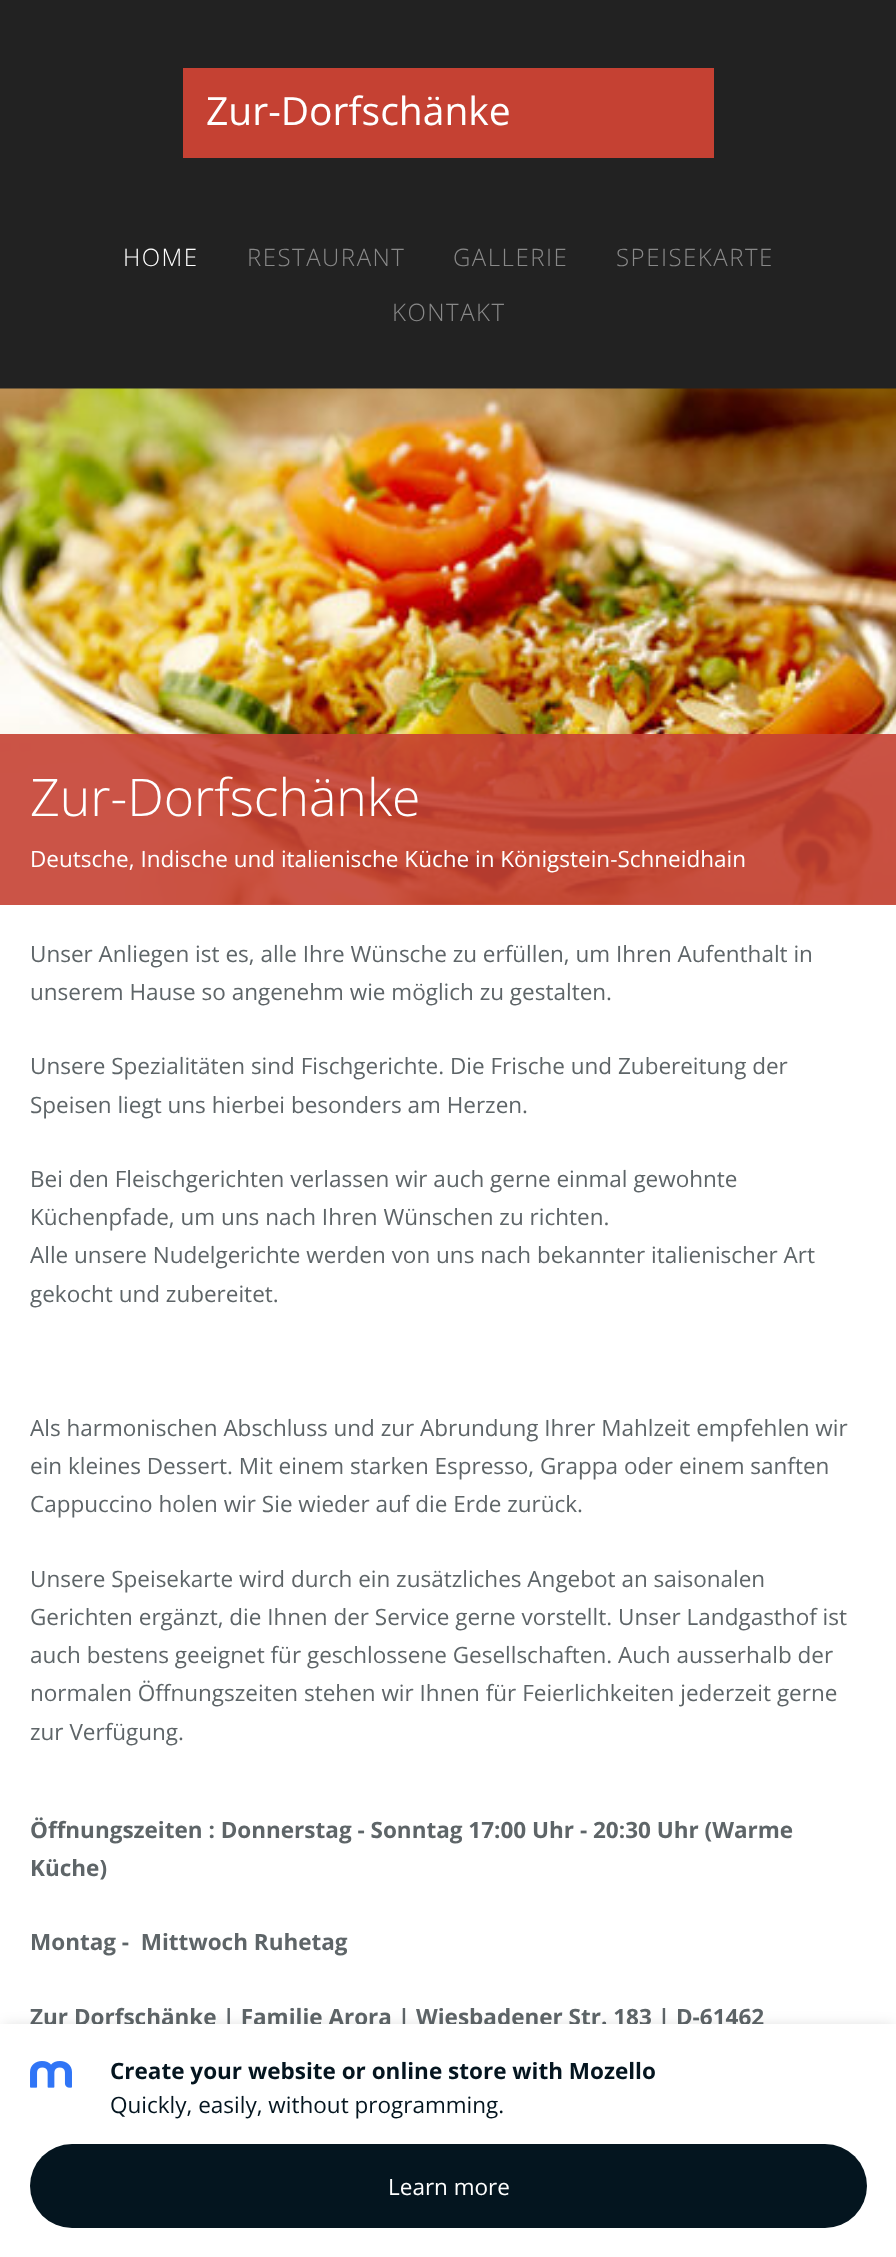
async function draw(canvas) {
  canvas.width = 896;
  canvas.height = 2257;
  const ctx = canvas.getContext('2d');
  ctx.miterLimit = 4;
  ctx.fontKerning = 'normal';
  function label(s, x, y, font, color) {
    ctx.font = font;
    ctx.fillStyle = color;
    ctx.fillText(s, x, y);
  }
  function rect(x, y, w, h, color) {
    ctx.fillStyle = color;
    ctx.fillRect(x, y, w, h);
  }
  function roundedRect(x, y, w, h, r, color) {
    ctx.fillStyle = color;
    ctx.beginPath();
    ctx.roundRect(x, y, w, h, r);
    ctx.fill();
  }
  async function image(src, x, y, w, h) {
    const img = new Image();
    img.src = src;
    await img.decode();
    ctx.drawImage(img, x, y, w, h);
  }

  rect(0, 0, 896, 2257, '#222');
  rect(183, 68, 531, 90, '#c54133');
  label('Zur-Dorfschänke', 206, 125, '39px Open Sans', '#fff');
  ctx.letterSpacing = '1.5px';
  label('HOME', 123, 266, '300 24px Open Sans', '#fff');
  label('RESTAURANT', 247, 266, '300 24px Open Sans', '#898989');
  label('GALLERIE', 453, 266, '300 24px Open Sans', '#898989');
  label('SPEISEKARTE', 616, 266, '300 24px Open Sans', '#898989');
  label('KONTAKT', 392, 321, '300 24px Open Sans', '#898989');
  rect(0, 904, 896, 1120, '#fff');
  await image('assets/img1.png', 0, 388, 896, 517);
  rect(0, 734, 896, 171, '#c54133e6');
  ctx.letterSpacing = '0px';
  label('Zur-Dorfschänke', 30, 816, '300 51.75px Open Sans', '#fff');
  label('Deutsche, Indische und italienische Küche in Königstein-Schneidhain', 30, 867, '22.5px Open Sans', '#fff');
  label('Unser Anliegen ist es, alle Ihre Wünsche zu erfüllen, um Ihren Aufenthalt in', 30, 962, '22.5px Open Sans', '#5e6568');
  label('unserem Hause so angenehm wie möglich zu gestalten.', 30, 1000, '22.5px Open Sans', '#5e6568');
  label('Unsere Spezialitäten sind Fischgerichte. Die Frische und Zubereitung der', 30, 1074, '22.5px Open Sans', '#5e6568');
  label('Speisen liegt uns hierbei besonders am Herzen.', 30, 1113, '22.5px Open Sans', '#5e6568');
  label('Bei den Fleischgerichten verlassen wir auch gerne einmal gewohnte', 30, 1187, '22.5px Open Sans', '#5e6568');
  label('Küchenpfade, um uns nach Ihren Wünschen zu richten.', 30, 1225, '22.5px Open Sans', '#5e6568');
  label('Alle unsere Nudelgerichte werden von uns nach bekannter italienischer Art', 30, 1263, '22.5px Open Sans', '#5e6568');
  label('gekocht und zubereitet.', 30, 1302, '22.5px Open Sans', '#5e6568');
  label('Als harmonischen Abschluss und zur Abrundung Ihrer Mahlzeit empfehlen wir', 30, 1436, '22.5px Open Sans', '#5e6568');
  label('ein kleines Dessert. Mit einem starken Espresso, Grappa oder einem sanften', 30, 1474, '22.5px Open Sans', '#5e6568');
  label('Cappuccino holen wir Sie wieder auf die Erde zurück.', 30, 1512, '22.5px Open Sans', '#5e6568');
  label('Unsere Speisekarte wird durch ein zusätzliches Angebot an saisonalen', 30, 1587, '22.5px Open Sans', '#5e6568');
  label('Gerichten ergänzt, die Ihnen der Service gerne vorstellt. Unser Landgasthof ist', 30, 1625, '22.5px Open Sans', '#5e6568');
  label('auch bestens geeignet für geschlossene Gesellschaften. Auch ausserhalb der', 30, 1663, '22.5px Open Sans', '#5e6568');
  label('normalen Öffnungszeiten stehen wir Ihnen für Feierlichkeiten jederzeit gerne', 30, 1701, '22.5px Open Sans', '#5e6568');
  label('zur Verfügung.', 30, 1740, '22.5px Open Sans', '#5e6568');
  label('Öffnungszeiten : Donnerstag - Sonntag 17:00 Uhr - 20:30 Uhr (Warme', 30, 1838, 'bold 22.5px Open Sans', '#5e6568');
  label('Küche)', 30, 1876, 'bold 22.5px Open Sans', '#5e6568');
  label('Montag -  Mittwoch Ruhetag', 30, 1950, 'bold 22.5px Open Sans', '#5e6568');
  label('Zur Dorfschänke | Familie Arora | Wiesbadener Str. 183 | D-61462', 30, 2025, 'bold 22.5px Open Sans', '#5e6568');
  ctx.fillStyle = '#0000002b';
  ctx.filter = 'blur(7.5px)';
  ctx.beginPath();
  ctx.rect(3, 2027, 891, 228);
  ctx.fill();
  ctx.filter = 'none';
  rect(0, 2024, 896, 233, '#fff');
  await image('assets/img2.png', 30, 2061, 42, 27);
  label('Create your website or online store with Mozello', 110, 2079, 'bold 22.5px Open Sans', '#04151f');
  label('Quickly, easily, without programming.', 110, 2113, '22.5px Open Sans', '#04151f');
  roundedRect(30, 2144, 837, 84, 42, '#04151f');
  label('Learn more', 388, 2195, '22.5px Open Sans', '#fff');
}

draw(document.querySelector('canvas'));
